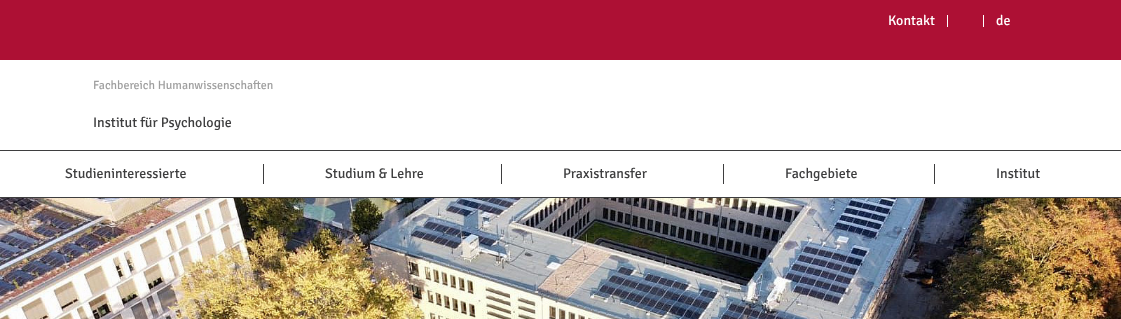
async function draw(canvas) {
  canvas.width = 1121;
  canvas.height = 319;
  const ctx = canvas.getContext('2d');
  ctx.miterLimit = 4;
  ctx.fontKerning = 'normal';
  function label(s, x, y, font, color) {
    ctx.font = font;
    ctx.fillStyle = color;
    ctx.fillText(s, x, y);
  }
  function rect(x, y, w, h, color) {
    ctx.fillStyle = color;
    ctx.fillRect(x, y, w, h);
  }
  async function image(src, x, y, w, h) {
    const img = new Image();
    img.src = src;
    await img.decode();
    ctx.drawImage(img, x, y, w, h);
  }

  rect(0, 0, 1121, 319, '#fff');
  rect(0, 0, 1121, 60, '#ad1034');
  label('Kontakt', 888, 25, '14px Signika', '#fff');
  rect(947, 15, 1, 12, '#fff');
  rect(983, 15, 1, 12, '#fff');
  label('de', 996, 25, '14px Signika', '#fff');
  label('Fachbereich Humanwissenschaften', 93, 89, '12px Signika', '#9f9f9f');
  label('Institut für Psychologie', 93, 127, '14px Signika', '#3e3e3f');
  rect(0, 150, 1121, 1, '#3e3e3f');
  rect(0, 197, 1121, 1, '#3e3e3f');
  label('Studieninteressierte', 65, 178, '14px Signika', '#3e3e3f');
  rect(263, 164, 1, 20, '#3e3e3f');
  label('Studium & Lehre', 325, 178, '14px Signika', '#3e3e3f');
  rect(501, 164, 1, 20, '#3e3e3f');
  label('Praxistransfer', 563, 178, '14px Signika', '#3e3e3f');
  rect(723, 164, 1, 20, '#3e3e3f');
  label('Fachgebiete', 785, 178, '14px Signika', '#3e3e3f');
  rect(934, 164, 1, 20, '#3e3e3f');
  label('Institut', 996, 178, '14px Signika', '#3e3e3f');
  await image('assets/img1.png', 0, 198, 1121, 121);
}

draw(document.querySelector('canvas'));
